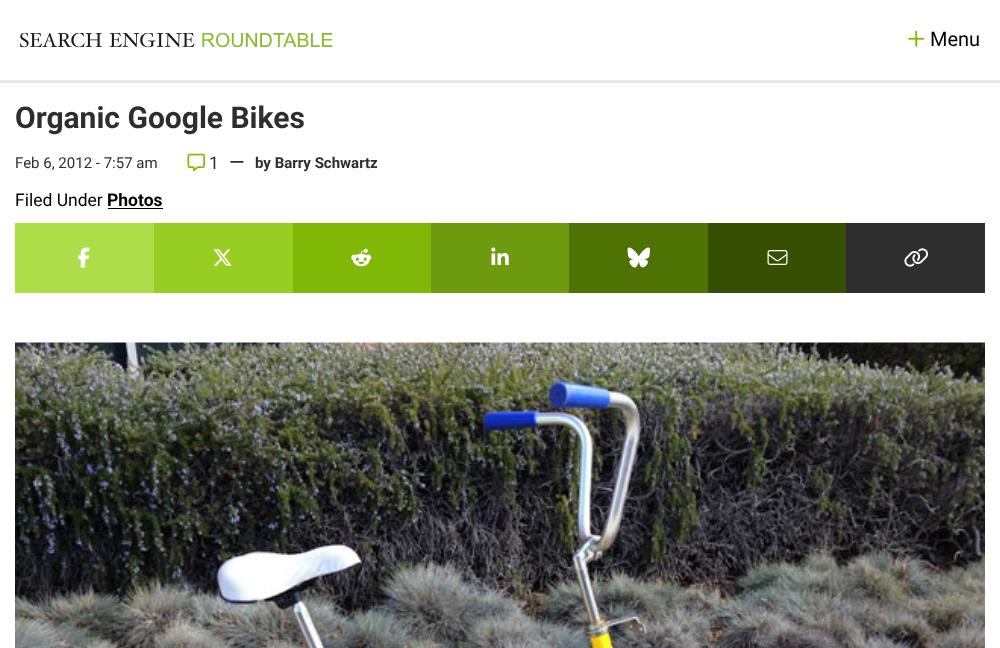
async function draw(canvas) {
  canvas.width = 1000;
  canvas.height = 648;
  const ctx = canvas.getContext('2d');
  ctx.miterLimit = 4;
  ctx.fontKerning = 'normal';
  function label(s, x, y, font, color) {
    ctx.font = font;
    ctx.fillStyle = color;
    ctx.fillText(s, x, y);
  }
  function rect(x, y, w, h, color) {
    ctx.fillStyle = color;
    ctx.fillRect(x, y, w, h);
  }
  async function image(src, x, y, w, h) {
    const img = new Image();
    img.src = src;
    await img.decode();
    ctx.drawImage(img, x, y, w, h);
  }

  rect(0, 0, 1000, 648, '#fff');
  rect(0, 80, 1000, 3, '#e5e7eb');
  await image('assets/img1.png', 20, 33, 313, 15);
  await image('assets/img2.png', 908, 30, 17, 17);
  label('Menu', 930, 46, '20px Roboto', '#000');
  label('Organic Google Bikes', 15, 128, 'bold 30px Roboto', '#2e2e2e');
  label('Feb 6, 2012 - 7:57 am', 15, 168, '15px Roboto', '#2e2e2e');
  await image('assets/img3.png', 187, 153, 18, 19);
  label('1', 209, 169, '17.5px Roboto', '#2e2e2e');
  label('—', 229, 169, '20px Roboto', '#000');
  label('by Barry Schwartz', 255, 168, 'bold 15px Roboto', '#2e2e2e');
  label('Filed Under', 15, 206, '17.5px Roboto', '#000');
  label('Photos', 107, 206, 'bold 17.5px Roboto', '#000');
  rect(108, 208, 55, 1, '#000');
  rect(15, 223, 139, 70, '#addd48');
  await image('assets/img4.png', 78, 247, 12, 21);
  rect(154, 223, 139, 70, '#97ce21');
  await image('assets/img5.png', 213, 249, 19, 17);
  rect(293, 223, 138, 70, '#7fb806');
  await image('assets/img6.png', 351, 248, 21, 19);
  rect(431, 223, 138, 70, '#6d9a0e');
  await image('assets/img7.png', 491, 247, 18, 18);
  rect(569, 223, 139, 70, '#4f7205');
  await image('assets/img8.png', 627, 247, 23, 21);
  rect(708, 223, 138, 70, '#374f03');
  await image('assets/img9.png', 767, 250, 21, 15);
  rect(846, 223, 139, 70, '#2e2e2e');
  await image('assets/img10.png', 904, 248, 25, 19);
  await image('assets/img11.png', 15, 342, 970, 306);
}

draw(document.querySelector('canvas'));
